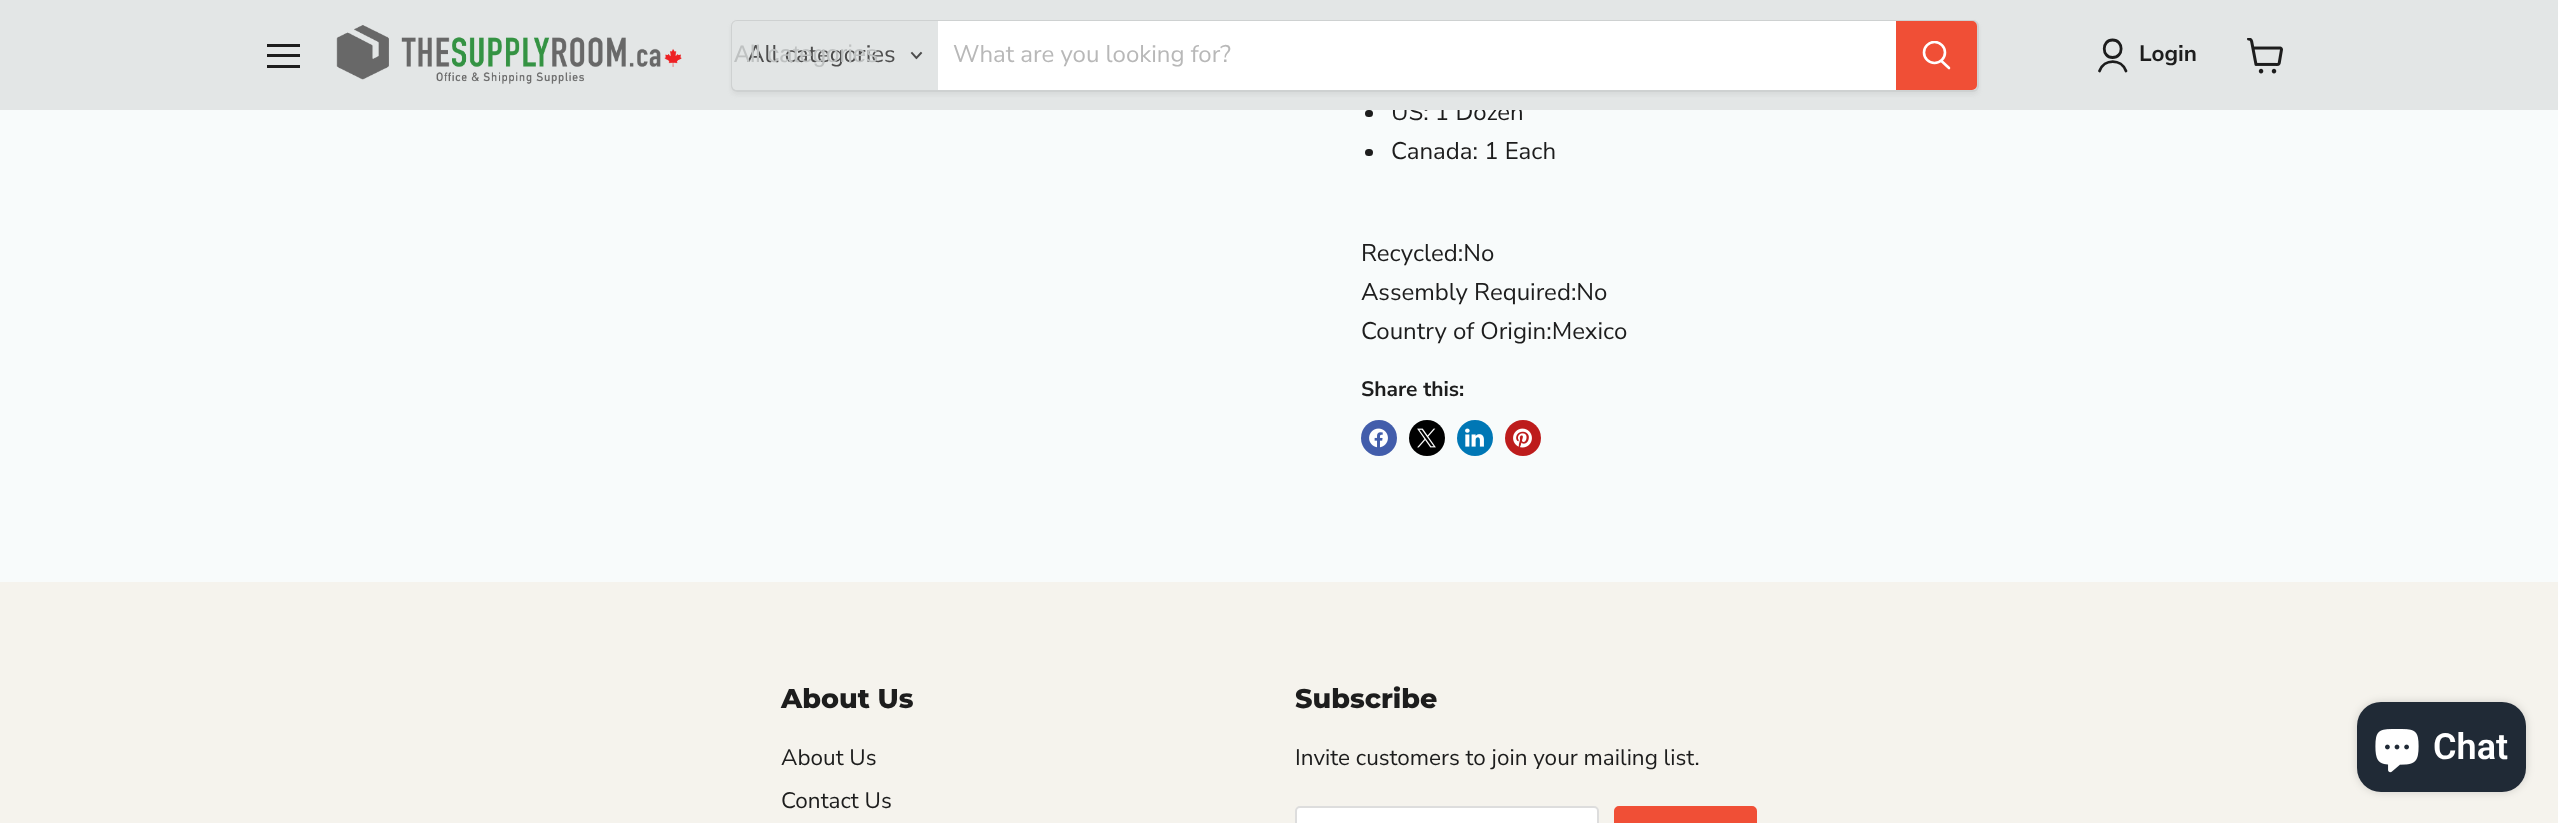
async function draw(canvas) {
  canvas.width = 2558;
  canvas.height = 823;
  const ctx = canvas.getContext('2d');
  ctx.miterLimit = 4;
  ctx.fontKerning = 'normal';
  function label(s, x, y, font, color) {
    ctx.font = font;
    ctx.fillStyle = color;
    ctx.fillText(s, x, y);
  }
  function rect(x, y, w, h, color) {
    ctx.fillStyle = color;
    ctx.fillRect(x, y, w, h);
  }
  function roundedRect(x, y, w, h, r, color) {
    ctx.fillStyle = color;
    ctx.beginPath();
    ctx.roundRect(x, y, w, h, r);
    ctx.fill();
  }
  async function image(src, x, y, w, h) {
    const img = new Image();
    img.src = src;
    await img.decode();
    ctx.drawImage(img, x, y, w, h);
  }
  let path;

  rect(0, 0, 2558, 823, '#f8fbfb');
  label('US: 1 Dozen', 1391, 120, '24px Nunito Sans', '#1d1d1d');
  rect(0, 0, 2558, 110, '#e3e6e6');
  rect(267, 44, 33, 3, '#1d1d1d');
  rect(267, 54, 33, 3, '#1d1d1d');
  rect(267, 65, 33, 3, '#1d1d1d');
  await image('assets/img1.png', 336, 25, 346, 59);
  ctx.save();
  path = new Path2D('M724 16H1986V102H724ZM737 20H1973C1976.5 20 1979 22.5 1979 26V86C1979 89.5 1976.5 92 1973 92H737C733.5 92 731 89.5 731 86V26C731 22.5 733.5 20 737 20Z');
  ctx.clip(path, 'evenodd');
  ctx.fillStyle = '#7c7e7e1c';
  ctx.filter = 'blur(2px)';
  ctx.beginPath();
  ctx.roundRect(731, 23, 1248, 72, 6);
  ctx.fill();
  ctx.filter = 'none';
  ctx.restore();
  ctx.beginPath();
  ctx.roundRect(732, 21, 1246, 70, 5);
  ctx.strokeStyle = '#7c7e7e33';
  ctx.lineWidth = 2;
  ctx.stroke();
  ctx.fillStyle = '#e2e5e5';
  ctx.beginPath();
  ctx.roundRect(732, 21, 206, 69, [5, 0, 0, 5]);
  ctx.fill();
  label('All categories', 747, 62, '24px Nunito Sans', '#4d4d4d');
  label('All categories', 734, 62, '24px Liberation Sans', '#bec1c1');
  path = new Path2D('M916.5 58L921 53M916.5 58L912 53');
  ctx.strokeStyle = '#4d4d4d';
  ctx.lineWidth = 1.9;
  ctx.lineCap = 'square';
  ctx.stroke(path);
  rect(938, 21, 958, 69, '#fff');
  label('What are you looking for?', 953, 62, '24px Nunito Sans', '#b8b8b8');
  ctx.fillStyle = '#f04f36';
  ctx.beginPath();
  ctx.roundRect(1897, 22, 79, 67, [0, 4, 4, 0]);
  ctx.fill();
  ctx.strokeStyle = '#f04f36';
  ctx.lineWidth = 2;
  ctx.stroke();
  path = new Path2D('M1949 68L1941.5 61');
  ctx.strokeStyle = '#fff';
  ctx.lineWidth = 2.6;
  ctx.lineCap = 'round';
  ctx.stroke(path);
  ctx.save();
  ctx.beginPath();
  ctx.rect(1922, 41, 30, 31);
  ctx.clip();
  ctx.beginPath();
  ctx.arc(1934.5, 52.5, 10.5, 0, 2 * Math.PI);
  ctx.stroke();
  ctx.restore();
  path = new Path2D('M2112.5 57.5C2124 57.5 2124 40 2112.5 40C2101.5 40 2101.5 57.5 2112.5 57.5ZM2126 71C2121.5 58.5 2104 58.5 2099.5 71');
  ctx.strokeStyle = '#1d1d1d';
  ctx.lineWidth = 2.8;
  ctx.lineJoin = 'round';
  ctx.stroke(path);
  label('Login', 2139, 61, 'bold 22.5px Nunito Sans', '#1d1d1d');
  await image('assets/img2.png', 2247, 38, 36, 36);
  roundedRect(1365, 110, 8, 7, 3.5, '#1d1d1d');
  roundedRect(1365, 149, 8, 7, 3.5, '#1d1d1d');
  label('Canada: 1 Each', 1391, 159, '24px Nunito Sans', '#1d1d1d');
  label('Recycled:No', 1361, 261, '24px Nunito Sans', '#1d1d1d');
  label('Assembly Required:No', 1361, 300, '24px Nunito Sans', '#1d1d1d');
  label('Country of Origin:Mexico', 1361, 339, '24px Nunito Sans', '#1d1d1d');
  label('Share this:', 1361, 396, 'bold 21px Nunito Sans', '#1d1d1d');
  ctx.fillStyle = '#425dab';
  ctx.beginPath();
  ctx.arc(1379, 438, 18, 0, 2 * Math.PI);
  ctx.fill();
  await image('assets/img3.png', 1369, 428, 19, 20);
  ctx.fillStyle = '#000';
  ctx.beginPath();
  ctx.arc(1427, 438, 18, 0, 2 * Math.PI);
  ctx.fill();
  await image('assets/img4.png', 1417, 428, 19, 20);
  ctx.fillStyle = '#0077b5';
  ctx.beginPath();
  ctx.arc(1475, 438, 18, 0, 2 * Math.PI);
  ctx.fill();
  await image('assets/img5.png', 1465, 428, 19, 19);
  ctx.fillStyle = '#bd1c1c';
  ctx.beginPath();
  ctx.arc(1523, 438, 18, 0, 2 * Math.PI);
  ctx.fill();
  await image('assets/img6.png', 1513, 428, 19, 20);
  rect(0, 582, 2558, 241, '#f5f3ed');
  label('About Us', 781, 708, '800 27px Montserrat', '#1d1d1d');
  label('About Us', 781, 765, '22.5px Nunito Sans', '#1d1d1d');
  label('Contact Us', 781, 808, '22.5px Nunito Sans', '#1d1d1d');
  label('Subscribe', 1295, 708, '800 27px Montserrat', '#1d1d1d');
  label('Invite customers to join your mailing list.', 1295, 765, '22.5px Nunito Sans', '#1d1d1d');
  ctx.fillStyle = '#fff';
  ctx.beginPath();
  ctx.roundRect(1296, 807, 302, 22, 4);
  ctx.fill();
  ctx.strokeStyle = '#ddd';
  ctx.lineWidth = 2;
  ctx.lineJoin = 'miter';
  ctx.stroke();
  ctx.fillStyle = '#f04f36';
  ctx.beginPath();
  ctx.roundRect(1615, 807, 141, 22, 4);
  ctx.fill();
  ctx.strokeStyle = '#f04f36';
  ctx.stroke();
  ctx.fillStyle = '#00000026';
  ctx.filter = 'blur(4px)';
  ctx.beginPath();
  ctx.roundRect(2357, 702, 169, 90, 24);
  ctx.fill();
  ctx.filter = 'none';
  roundedRect(2357, 702, 169, 90, 24, '#202a36');
  await image('assets/img7.png', 2375, 729, 44, 44);
  label('Chat', 2433, 759, '600 36px Roboto', '#fff');
}

draw(document.querySelector('canvas'));
